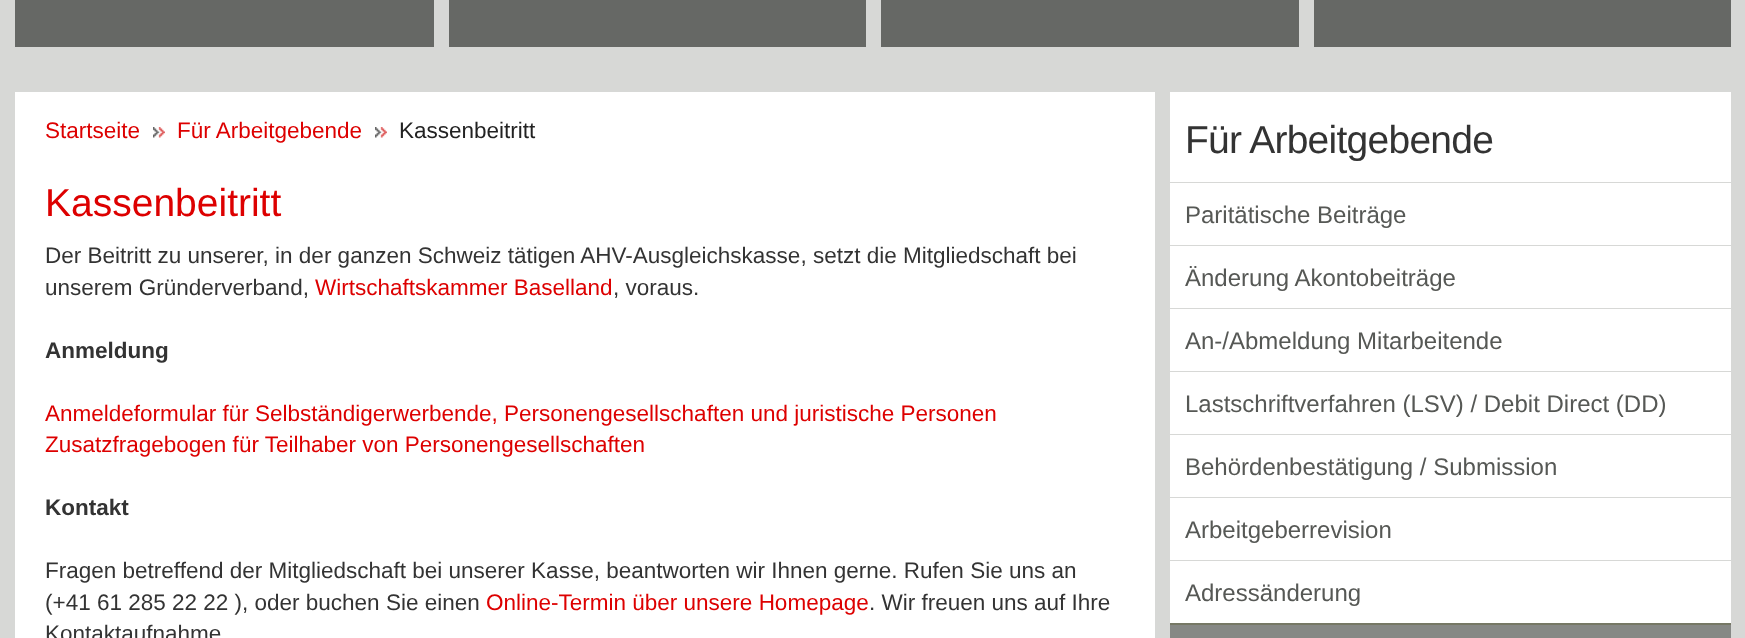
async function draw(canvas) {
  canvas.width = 1745;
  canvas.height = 638;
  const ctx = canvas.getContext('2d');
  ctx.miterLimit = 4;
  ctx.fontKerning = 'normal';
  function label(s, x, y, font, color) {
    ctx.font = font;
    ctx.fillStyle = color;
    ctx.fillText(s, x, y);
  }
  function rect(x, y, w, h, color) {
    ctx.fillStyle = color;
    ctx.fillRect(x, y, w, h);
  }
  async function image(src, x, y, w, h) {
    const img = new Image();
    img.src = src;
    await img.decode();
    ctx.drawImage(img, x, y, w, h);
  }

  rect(0, 0, 1745, 638, '#d7d8d6');
  rect(15, 0, 419, 47, '#666865');
  rect(449, 0, 417, 47, '#666865');
  rect(881, 0, 418, 47, '#666865');
  rect(1314, 0, 417, 47, '#666865');
  rect(15, 92, 1140, 546, '#fff');
  label('Startseite', 45, 138, '22.5px Liberation Sans', '#d00');
  await image('assets/img1.png', 153, 127, 12, 11);
  label('Für Arbeitgebende', 177, 138, '22.5px Liberation Sans', '#d00');
  await image('assets/img2.png', 375, 127, 12, 11);
  label('Kassenbeitritt', 399, 138, '22.5px Liberation Sans', '#222');
  label('Kassenbeitritt', 45, 216, '39px Liberation Sans', '#d00');
  label('Der Beitritt zu unserer, in der ganzen Schweiz tätigen AHV-Ausgleichskasse, setzt die Mitgliedschaft bei', 45, 263, '22.5px Liberation Sans', '#333');
  label('unserem Gründerverband,', 45, 295, '22.5px Liberation Sans', '#333');
  label('Wirtschaftskammer Baselland', 315, 295, '22.5px Liberation Sans', '#d00');
  label(', voraus.', 613, 295, '22.5px Liberation Sans', '#333');
  label('Anmeldung', 45, 358, 'bold 22.5px Liberation Sans', '#333');
  label('Anmeldeformular für Selbständigerwerbende, Personengesellschaften und juristische Personen', 45, 421, '22.5px Liberation Sans', '#d00');
  label('Zusatzfragebogen für Teilhaber von Personengesellschaften', 45, 452, '22.5px Liberation Sans', '#d00');
  label('Kontakt', 45, 515, 'bold 22.5px Liberation Sans', '#333');
  label('Fragen betreffend der Mitgliedschaft bei unserer Kasse, beantworten wir Ihnen gerne. Rufen Sie uns an', 45, 578, '22.5px Liberation Sans', '#333');
  label('(+41 61 285 22 22 ), oder buchen Sie einen', 45, 610, '22.5px Liberation Sans', '#333');
  label('Online-Termin über unsere Homepage', 486, 610, '22.5px Liberation Sans', '#d00');
  label('. Wir freuen uns auf Ihre', 869, 610, '22.5px Liberation Sans', '#333');
  label('Kontaktaufnahme', 45, 641, '22.5px Liberation Sans', '#333');
  rect(1170, 92, 561, 90, '#fff');
  ctx.letterSpacing = '-0.75px';
  label('Für Arbeitgebende', 1185, 153, '39px Liberation Sans', '#333');
  rect(1170, 183, 561, 62, '#fff');
  ctx.letterSpacing = '0px';
  label('Paritätische Beiträge', 1185, 223, '24px Liberation Sans', '#565855');
  rect(1170, 246, 561, 62, '#fff');
  label('Änderung Akontobeiträge', 1185, 286, '24px Liberation Sans', '#565855');
  rect(1170, 309, 561, 62, '#fff');
  label('An-/Abmeldung Mitarbeitende', 1185, 349, '24px Liberation Sans', '#565855');
  rect(1170, 372, 561, 62, '#fff');
  label('Lastschriftverfahren (LSV) / Debit Direct (DD)', 1185, 412, '24px Liberation Sans', '#565855');
  rect(1170, 435, 561, 62, '#fff');
  label('Behördenbestätigung / Submission', 1185, 475, '24px Liberation Sans', '#565855');
  rect(1170, 498, 561, 62, '#fff');
  label('Arbeitgeberrevision', 1185, 538, '24px Liberation Sans', '#565855');
  rect(1170, 561, 561, 62, '#fff');
  label('Adressänderung', 1185, 601, '24px Liberation Sans', '#565855');
  rect(1170, 625, 561, 13, '#868885');
  rect(1170, 623, 561, 2, '#767865');
}

draw(document.querySelector('canvas'));
